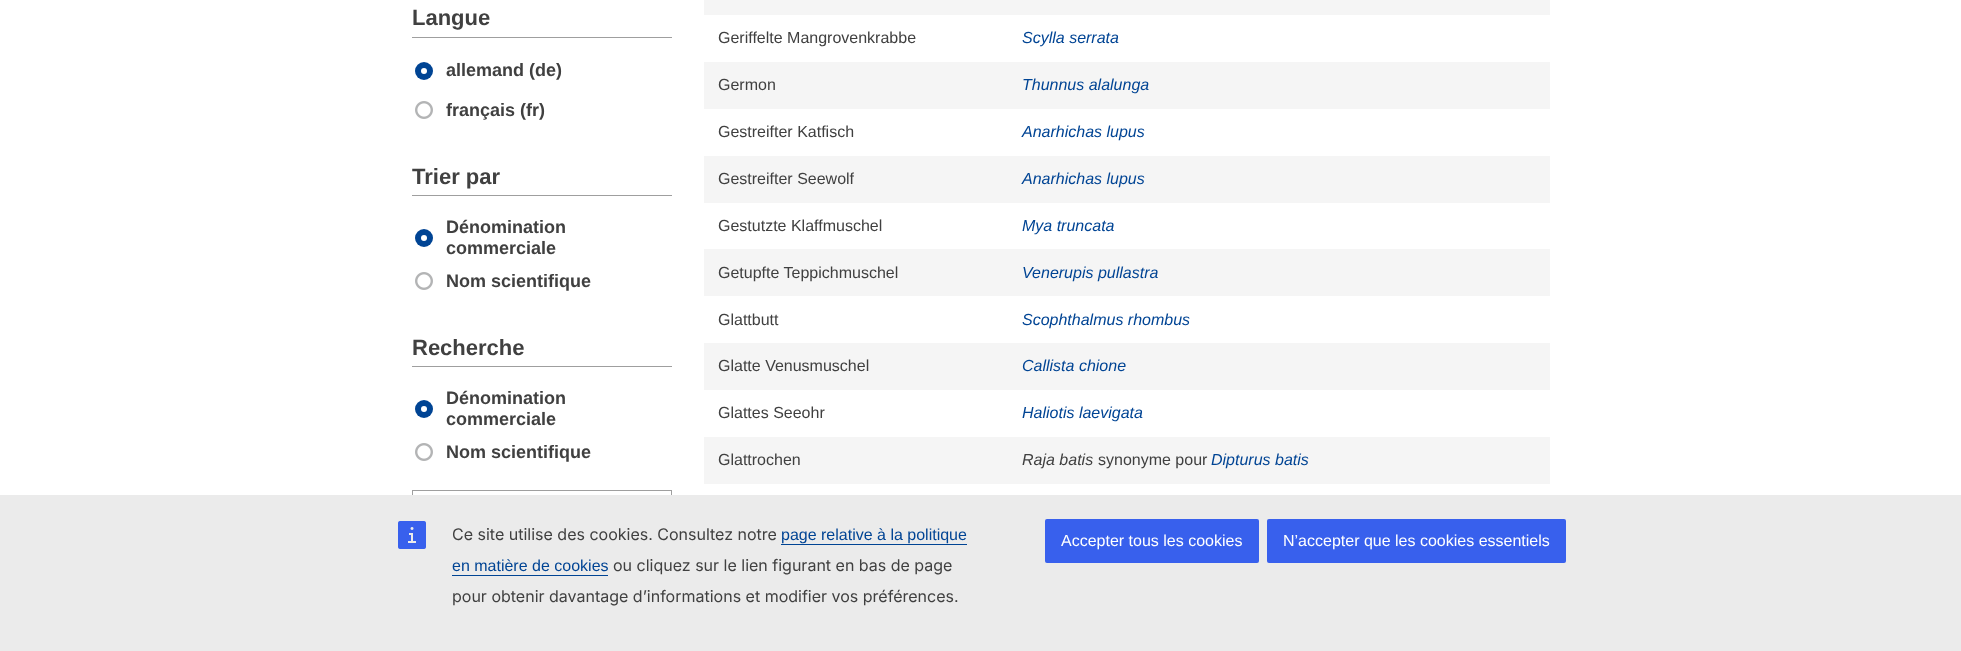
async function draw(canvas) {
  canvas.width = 1961;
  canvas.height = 651;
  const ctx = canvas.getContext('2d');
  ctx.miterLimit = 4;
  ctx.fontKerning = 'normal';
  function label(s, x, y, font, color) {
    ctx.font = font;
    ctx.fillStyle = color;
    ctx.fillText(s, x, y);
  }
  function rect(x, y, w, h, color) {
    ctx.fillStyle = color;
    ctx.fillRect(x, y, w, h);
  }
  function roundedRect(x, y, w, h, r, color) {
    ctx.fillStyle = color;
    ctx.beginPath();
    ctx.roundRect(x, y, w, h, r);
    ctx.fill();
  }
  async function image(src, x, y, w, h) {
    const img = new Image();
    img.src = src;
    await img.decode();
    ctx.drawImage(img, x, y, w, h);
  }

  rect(0, 0, 1961, 651, '#fff');
  rect(412, 37, 260, 1, '#9f9f9f');
  label('Langue', 412, 25, 'bold 22px Liberation Sans', '#404040');
  ctx.fillStyle = '#004494';
  ctx.beginPath();
  ctx.arc(424, 71, 9, 0, 2 * Math.PI);
  ctx.fill();
  ctx.fillStyle = '#fff';
  ctx.beginPath();
  ctx.arc(424, 71, 3, 0, 2 * Math.PI);
  ctx.fill();
  label('allemand (de)', 446, 76, 'bold 18px Liberation Sans', '#404040');
  await image('assets/img1.png', 415, 101, 18, 18);
  label('français (fr)', 446, 116, 'bold 18px Liberation Sans', '#404040');
  rect(412, 195, 260, 1, '#9f9f9f');
  label('Trier par', 412, 184, 'bold 22px Liberation Sans', '#404040');
  label('Dénomination', 446, 233, 'bold 18px Liberation Sans', '#404040');
  ctx.fillStyle = '#004494';
  ctx.beginPath();
  ctx.arc(424, 238, 9, 0, 2 * Math.PI);
  ctx.fill();
  ctx.fillStyle = '#fff';
  ctx.beginPath();
  ctx.arc(424, 238, 3, 0, 2 * Math.PI);
  ctx.fill();
  label('commerciale', 446, 254, 'bold 18px Liberation Sans', '#404040');
  await image('assets/img1.png', 415, 272, 18, 18);
  label('Nom scientifique', 446, 287, 'bold 18px Liberation Sans', '#404040');
  rect(412, 366, 260, 1, '#9f9f9f');
  label('Recherche', 412, 355, 'bold 22px Liberation Sans', '#404040');
  label('Dénomination', 446, 404, 'bold 18px Liberation Sans', '#404040');
  ctx.fillStyle = '#004494';
  ctx.beginPath();
  ctx.arc(424, 409, 9, 0, 2 * Math.PI);
  ctx.fill();
  ctx.fillStyle = '#fff';
  ctx.beginPath();
  ctx.arc(424, 409, 3, 0, 2 * Math.PI);
  ctx.fill();
  label('commerciale', 446, 425, 'bold 18px Liberation Sans', '#404040');
  await image('assets/img1.png', 415, 443, 18, 18);
  label('Nom scientifique', 446, 458, 'bold 18px Liberation Sans', '#404040');
  ctx.strokeStyle = '#9f9f9f';
  ctx.strokeRect(412.5, 490.5, 259, 43);
  rect(704, 0, 846, 15, '#f5f5f5');
  label('Geriffelte Mangrovenkrabbe', 718, 43, '16px Liberation Sans', '#404040');
  label('Scylla serrata', 1022, 43, 'italic 16px Liberation Sans', '#004494');
  rect(704, 62, 846, 47, '#f5f5f5');
  label('Germon', 718, 90, '16px Liberation Sans', '#404040');
  label('Thunnus alalunga', 1022, 90, 'italic 16px Liberation Sans', '#004494');
  label('Gestreifter Katfisch', 718, 137, '16px Liberation Sans', '#404040');
  label('Anarhichas lupus', 1022, 137, 'italic 16px Liberation Sans', '#004494');
  rect(704, 156, 846, 47, '#f5f5f5');
  label('Gestreifter Seewolf', 718, 184, '16px Liberation Sans', '#404040');
  label('Anarhichas lupus', 1022, 184, 'italic 16px Liberation Sans', '#004494');
  label('Gestutzte Klaffmuschel', 718, 231, '16px Liberation Sans', '#404040');
  label('Mya truncata', 1022, 231, 'italic 16px Liberation Sans', '#004494');
  rect(704, 249, 846, 47, '#f5f5f5');
  label('Getupfte Teppichmuschel', 718, 278, '16px Liberation Sans', '#404040');
  label('Venerupis pullastra', 1022, 278, 'italic 16px Liberation Sans', '#004494');
  label('Glattbutt', 718, 325, '16px Liberation Sans', '#404040');
  label('Scophthalmus rhombus', 1022, 325, 'italic 16px Liberation Sans', '#004494');
  rect(704, 343, 846, 47, '#f5f5f5');
  label('Glatte Venusmuschel', 718, 371, '16px Liberation Sans', '#404040');
  label('Callista chione', 1022, 371, 'italic 16px Liberation Sans', '#004494');
  label('Glattes Seeohr', 718, 418, '16px Liberation Sans', '#404040');
  label('Haliotis laevigata', 1022, 418, 'italic 16px Liberation Sans', '#004494');
  rect(704, 437, 846, 47, '#f5f5f5');
  label('Glattrochen', 718, 465, '16px Liberation Sans', '#404040');
  label('Raja batis', 1022, 465, 'italic 16px Liberation Sans', '#404040');
  label('synonyme pour', 1098, 465, '16px Liberation Sans', '#404040');
  label('Dipturus batis', 1211, 465, 'italic 16px Liberation Sans', '#004494');
  rect(0, 495, 1961, 156, '#ebebeb');
  await image('assets/img2.png', 398, 521, 28, 28);
  label('Ce site utilise des cookies. Consultez notre', 452, 540, '16px Inter', '#404040');
  label('page relative à la politique', 781, 540, '16px Liberation Sans', '#004494');
  rect(781, 544, 186, 1, '#004494');
  label('en matière de cookies', 452, 571, '16px Liberation Sans', '#004494');
  rect(452, 575, 156, 1, '#004494');
  label('ou cliquez sur le lien figurant en bas de page', 613, 571, '16px Inter', '#404040');
  label('pour obtenir davantage d’informations et modifier vos préférences.', 452, 602, '16px Inter', '#404040');
  roundedRect(1045, 519, 214, 44, 2, '#3860ed');
  label('Accepter tous les cookies', 1061, 546, '16px Liberation Sans', '#fff');
  roundedRect(1267, 519, 299, 44, 2, '#3860ed');
  label('N’accepter que les cookies essentiels', 1283, 546, '16px Liberation Sans', '#fff');
}

draw(document.querySelector('canvas'));
